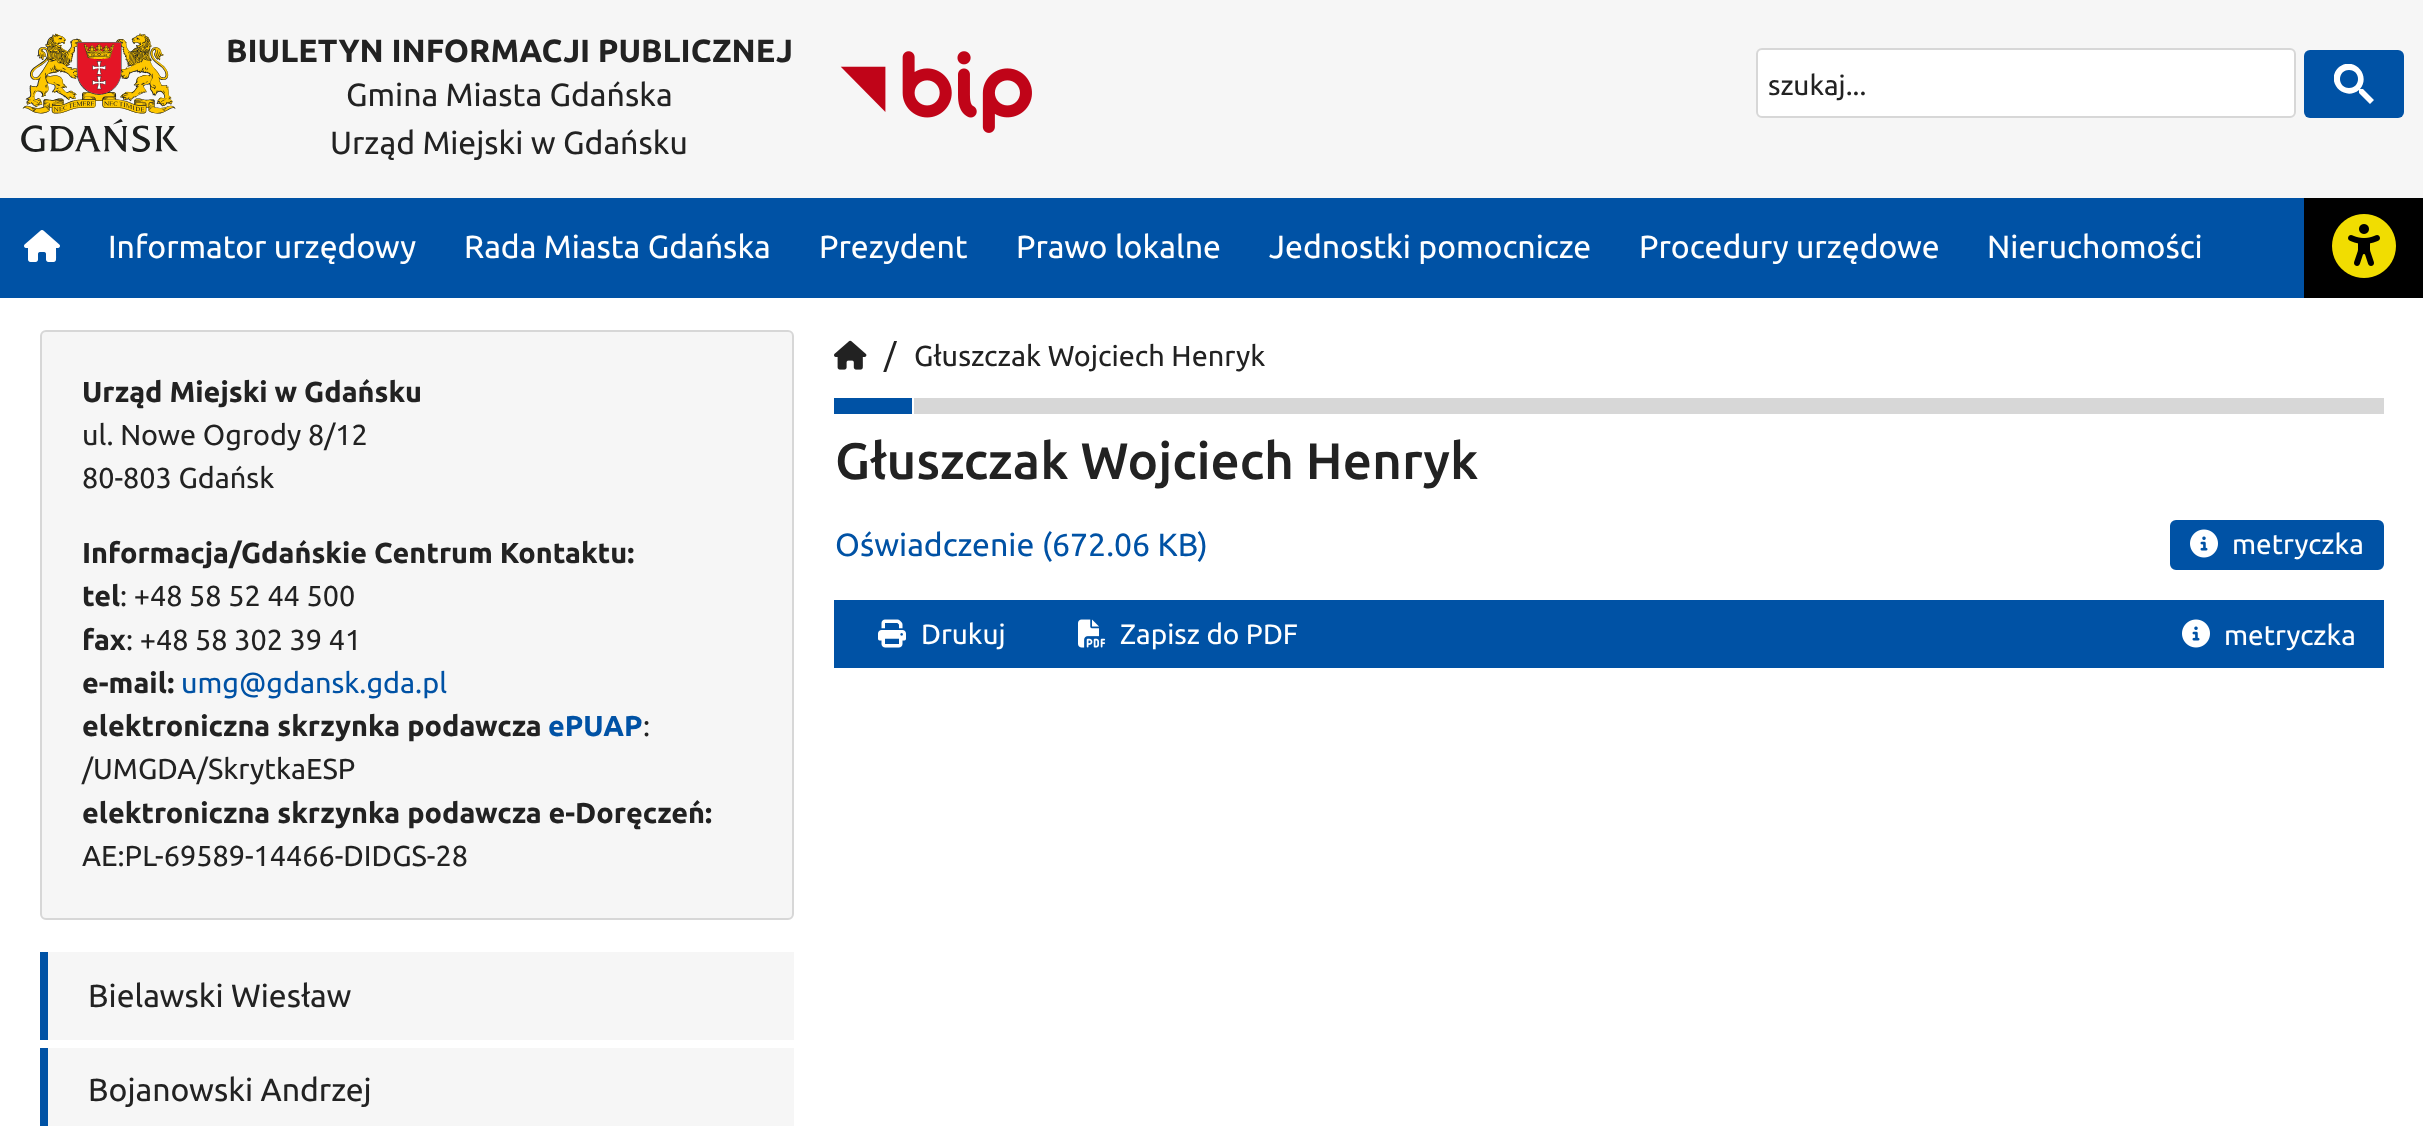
async function draw(canvas) {
  canvas.width = 2423;
  canvas.height = 1126;
  const ctx = canvas.getContext('2d');
  ctx.miterLimit = 4;
  ctx.fontKerning = 'normal';
  function label(s, x, y, font, color) {
    ctx.font = font;
    ctx.fillStyle = color;
    ctx.fillText(s, x, y);
  }
  function rect(x, y, w, h, color) {
    ctx.fillStyle = color;
    ctx.fillRect(x, y, w, h);
  }
  function roundedRect(x, y, w, h, r, color) {
    ctx.fillStyle = color;
    ctx.beginPath();
    ctx.roundRect(x, y, w, h, r);
    ctx.fill();
  }
  async function image(src, x, y, w, h) {
    const img = new Image();
    img.src = src;
    await img.decode();
    ctx.drawImage(img, x, y, w, h);
  }
  let path;

  rect(0, 0, 2423, 1126, '#f6f6f6');
  await image('assets/img1.png', 21, 33, 157, 119);
  label('BIULETYN INFORMACJI PUBLICZNEJ', 226, 62, 'bold 32px Ubuntu', '#222');
  label('Gmina Miasta Gdańska', 346, 106, '32px Ubuntu', '#222');
  label('Urząd Miejski w Gdańsku', 330, 154, '32px Ubuntu', '#222');
  await image('assets/img2.png', 840, 51, 192, 82);
  ctx.fillStyle = '#fff';
  ctx.beginPath();
  ctx.roundRect(1757, 49, 538, 68, 5);
  ctx.fill();
  ctx.strokeStyle = '#d7d7d7';
  ctx.lineWidth = 2;
  ctx.stroke();
  label('szukaj...', 1768, 95, '28px Ubuntu', '#222');
  roundedRect(2304, 50, 100, 68, 6, '#0052a5');
  ctx.save();
  ctx.beginPath();
  ctx.rect(2334, 64, 40, 40);
  ctx.clip();
  ctx.fillStyle = '#fff';
  path = new Path2D('M2349 88C2361 88 2361 70 2349 70C2337 70 2337 88 2349 88ZM2363 89L2374 100L2370 104L2359 93V90C2344 102 2325 82 2338 68C2352 55 2372 74 2360 89Z');
  ctx.fill(path);
  ctx.restore();
  rect(0, 198, 2304, 100, '#0052a5');
  await image('assets/img3.png', 24, 230, 36, 32);
  label('Informator urzędowy', 108, 258, '32px Ubuntu', '#fff');
  label('Rada Miasta Gdańska', 464, 258, '32px Ubuntu', '#fff');
  label('Prezydent', 819, 258, '32px Ubuntu', '#fff');
  label('Prawo lokalne', 1016, 258, '32px Ubuntu', '#fff');
  label('Jednostki pomocnicze', 1269, 258, '32px Ubuntu', '#fff');
  label('Procedury urzędowe', 1639, 258, '32px Ubuntu', '#fff');
  label('Nieruchomości', 1987, 258, '32px Ubuntu', '#fff');
  rect(2304, 198, 119, 100, '#000');
  await image('assets/img4.png', 2332, 214, 64, 64);
  rect(0, 298, 2423, 828, '#fff');
  ctx.fillStyle = '#f6f6f6';
  ctx.beginPath();
  ctx.roundRect(41, 331, 752, 588, 5);
  ctx.fill();
  ctx.stroke();
  label('Urząd Miejski w Gdańsku', 82, 402, 'bold 28.8px Ubuntu', '#222');
  label('ul. Nowe Ogrody 8/12', 82, 445, '28.8px Ubuntu', '#222');
  label('80-803 Gdańsk', 82, 488, '28.8px Ubuntu', '#222');
  label('Informacja/Gdańskie Centrum Kontaktu:', 82, 563, 'bold 28.8px Ubuntu', '#222');
  label('tel', 82, 606, 'bold 28.8px Ubuntu', '#222');
  label(': +48 58 52 44 500', 120, 606, '28.8px Ubuntu', '#222');
  label('fax', 82, 650, 'bold 28.8px Ubuntu', '#222');
  label(': +48 58 302 39 41', 126, 650, '28.8px Ubuntu', '#222');
  label('e-mail:', 82, 693, 'bold 28.8px Ubuntu', '#222');
  label('umg@gdansk.gda.pl', 181, 693, '28.8px Ubuntu', '#0052a5');
  label('elektroniczna skrzynka podawcza', 82, 736, 'bold 28.8px Ubuntu', '#222');
  label('ePUAP', 548, 736, 'bold 28.8px Ubuntu', '#0052a5');
  label(':', 643, 736, '28.8px Ubuntu', '#222');
  label('/UMGDA/SkrytkaESP', 82, 779, '28.8px Ubuntu', '#222');
  label('elektroniczna skrzynka podawcza e-Doręczeń:', 82, 823, 'bold 28.8px Ubuntu', '#222');
  label('AE:PL-69589-14466-DIDGS-28', 82, 866, '28.8px Ubuntu', '#222');
  rect(48, 952, 746, 88, '#f6f6f6');
  rect(40, 952, 8, 88, '#0052a5');
  label('Bielawski Wiesław', 88, 1007, '32px Ubuntu', '#222');
  rect(48, 1048, 746, 78, '#f6f6f6');
  rect(40, 1048, 8, 78, '#0052a5');
  label('Bojanowski Andrzej', 88, 1101, '32px Ubuntu', '#222');
  await image('assets/img5.png', 834, 340, 33, 30);
  label('/', 884, 366, '32px Ubuntu', '#222');
  label('Głuszczak Wojciech Henryk', 914, 366, '28.8px Ubuntu', '#222');
  rect(914, 398, 1470, 16, '#d7d7d7');
  rect(834, 398, 78, 16, '#0052a5');
  label('Głuszczak Wojciech Henryk', 835, 479, '500 51.25px Ubuntu', '#222');
  label('Oświadczenie (672.06 KB)', 835, 556, '32px Ubuntu', '#0052a5');
  ctx.beginPath();
  ctx.roundRect(2172, 522, 210, 46, 4);
  ctx.fill();
  ctx.strokeStyle = '#0052a5';
  ctx.lineWidth = 4;
  ctx.stroke();
  await image('assets/img6.png', 2190, 529, 28, 29);
  label('metryczka', 2232, 554, '28px Ubuntu', '#fff');
  rect(834, 600, 1550, 68, '#0052a5');
  await image('assets/img7.png', 878, 619, 28, 29);
  label('Drukuj', 921, 644, '28px Ubuntu', '#fff');
  await image('assets/img8.png', 1078, 619, 28, 29);
  label('Zapisz do PDF', 1120, 644, '28px Ubuntu', '#fff');
  await image('assets/img6.png', 2182, 619, 28, 29);
  label('metryczka', 2224, 645, '28px Ubuntu', '#fff');
}

draw(document.querySelector('canvas'));
